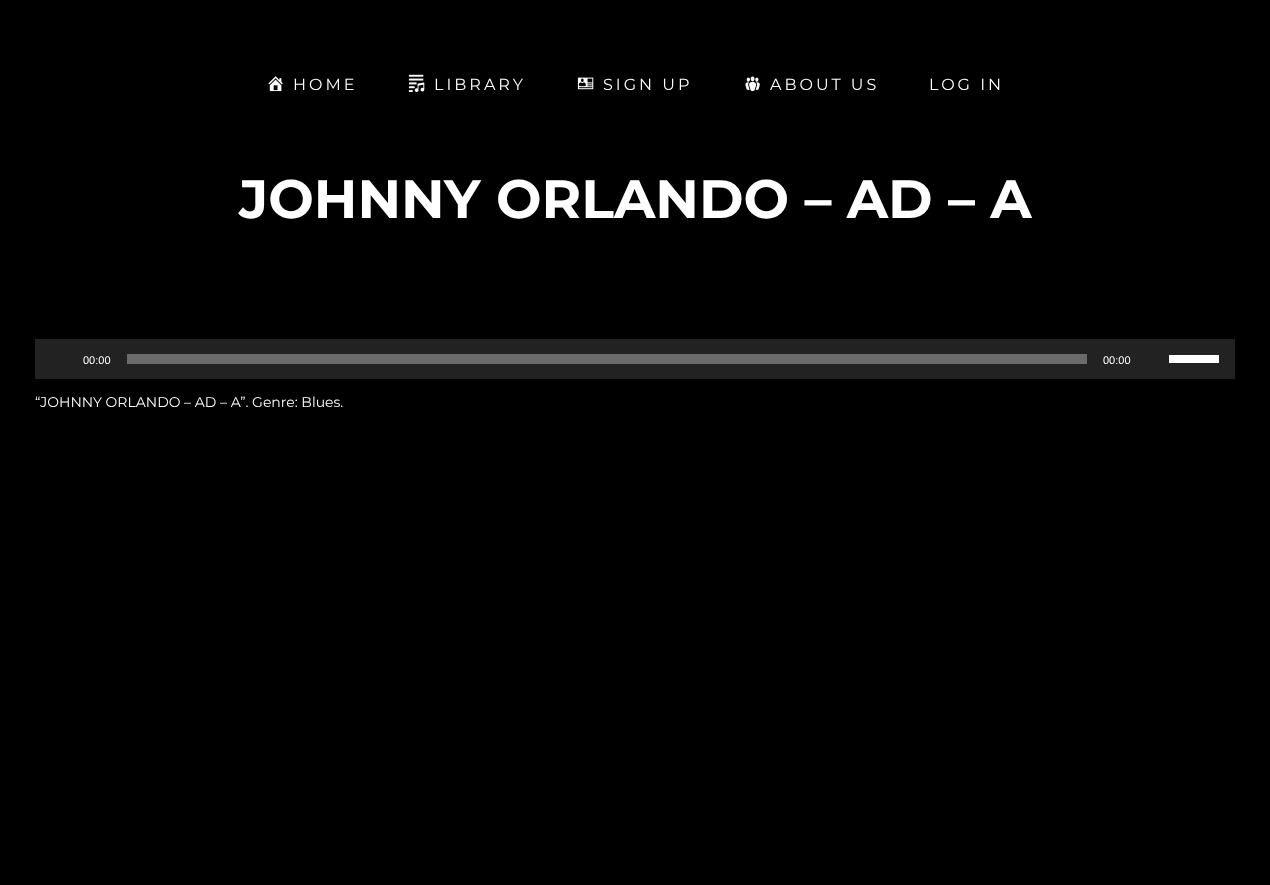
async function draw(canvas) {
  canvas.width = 1270;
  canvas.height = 885;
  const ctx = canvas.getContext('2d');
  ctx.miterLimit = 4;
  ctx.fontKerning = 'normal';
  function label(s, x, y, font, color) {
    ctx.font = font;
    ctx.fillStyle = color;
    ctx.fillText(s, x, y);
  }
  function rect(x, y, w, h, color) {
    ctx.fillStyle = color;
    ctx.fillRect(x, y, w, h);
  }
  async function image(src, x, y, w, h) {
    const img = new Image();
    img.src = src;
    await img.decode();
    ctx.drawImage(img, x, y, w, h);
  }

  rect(0, 0, 1270, 885, '#000');
  await image('assets/img1.png', 268, 76, 15, 16);
  ctx.letterSpacing = '3px';
  label('HOME', 293, 90, '16px Montserrat', '#fff');
  await image('assets/img2.png', 408, 74, 17, 18);
  label('LIBRARY', 434, 90, '16px Montserrat', '#fff');
  await image('assets/img3.png', 577, 77, 17, 13);
  label('SIGN UP', 603, 90, '16px Montserrat', '#fff');
  await image('assets/img4.png', 745, 76, 15, 16);
  label('ABOUT US', 770, 90, '16px Montserrat', '#fff');
  label('LOG IN', 929, 90, '16px Montserrat', '#fff');
  ctx.letterSpacing = '0px';
  label('JOHNNY ORLANDO – AD – A', 239, 218, 'bold 54px Montserrat', '#fff');
  rect(35, 339, 1200, 40, '#222');
  label('00:00', 83, 364, '11px Liberation Sans', '#fff');
  rect(127, 354, 960, 10, '#6b6b6b');
  label('00:00', 1103, 364, '11px Liberation Sans', '#fff');
  rect(1169, 355, 50, 8, '#fff');
  label('“JOHNNY ORLANDO – AD – A”. Genre: Blues.', 35, 407, '14px Montserrat', '#fff');
}

draw(document.querySelector('canvas'));
